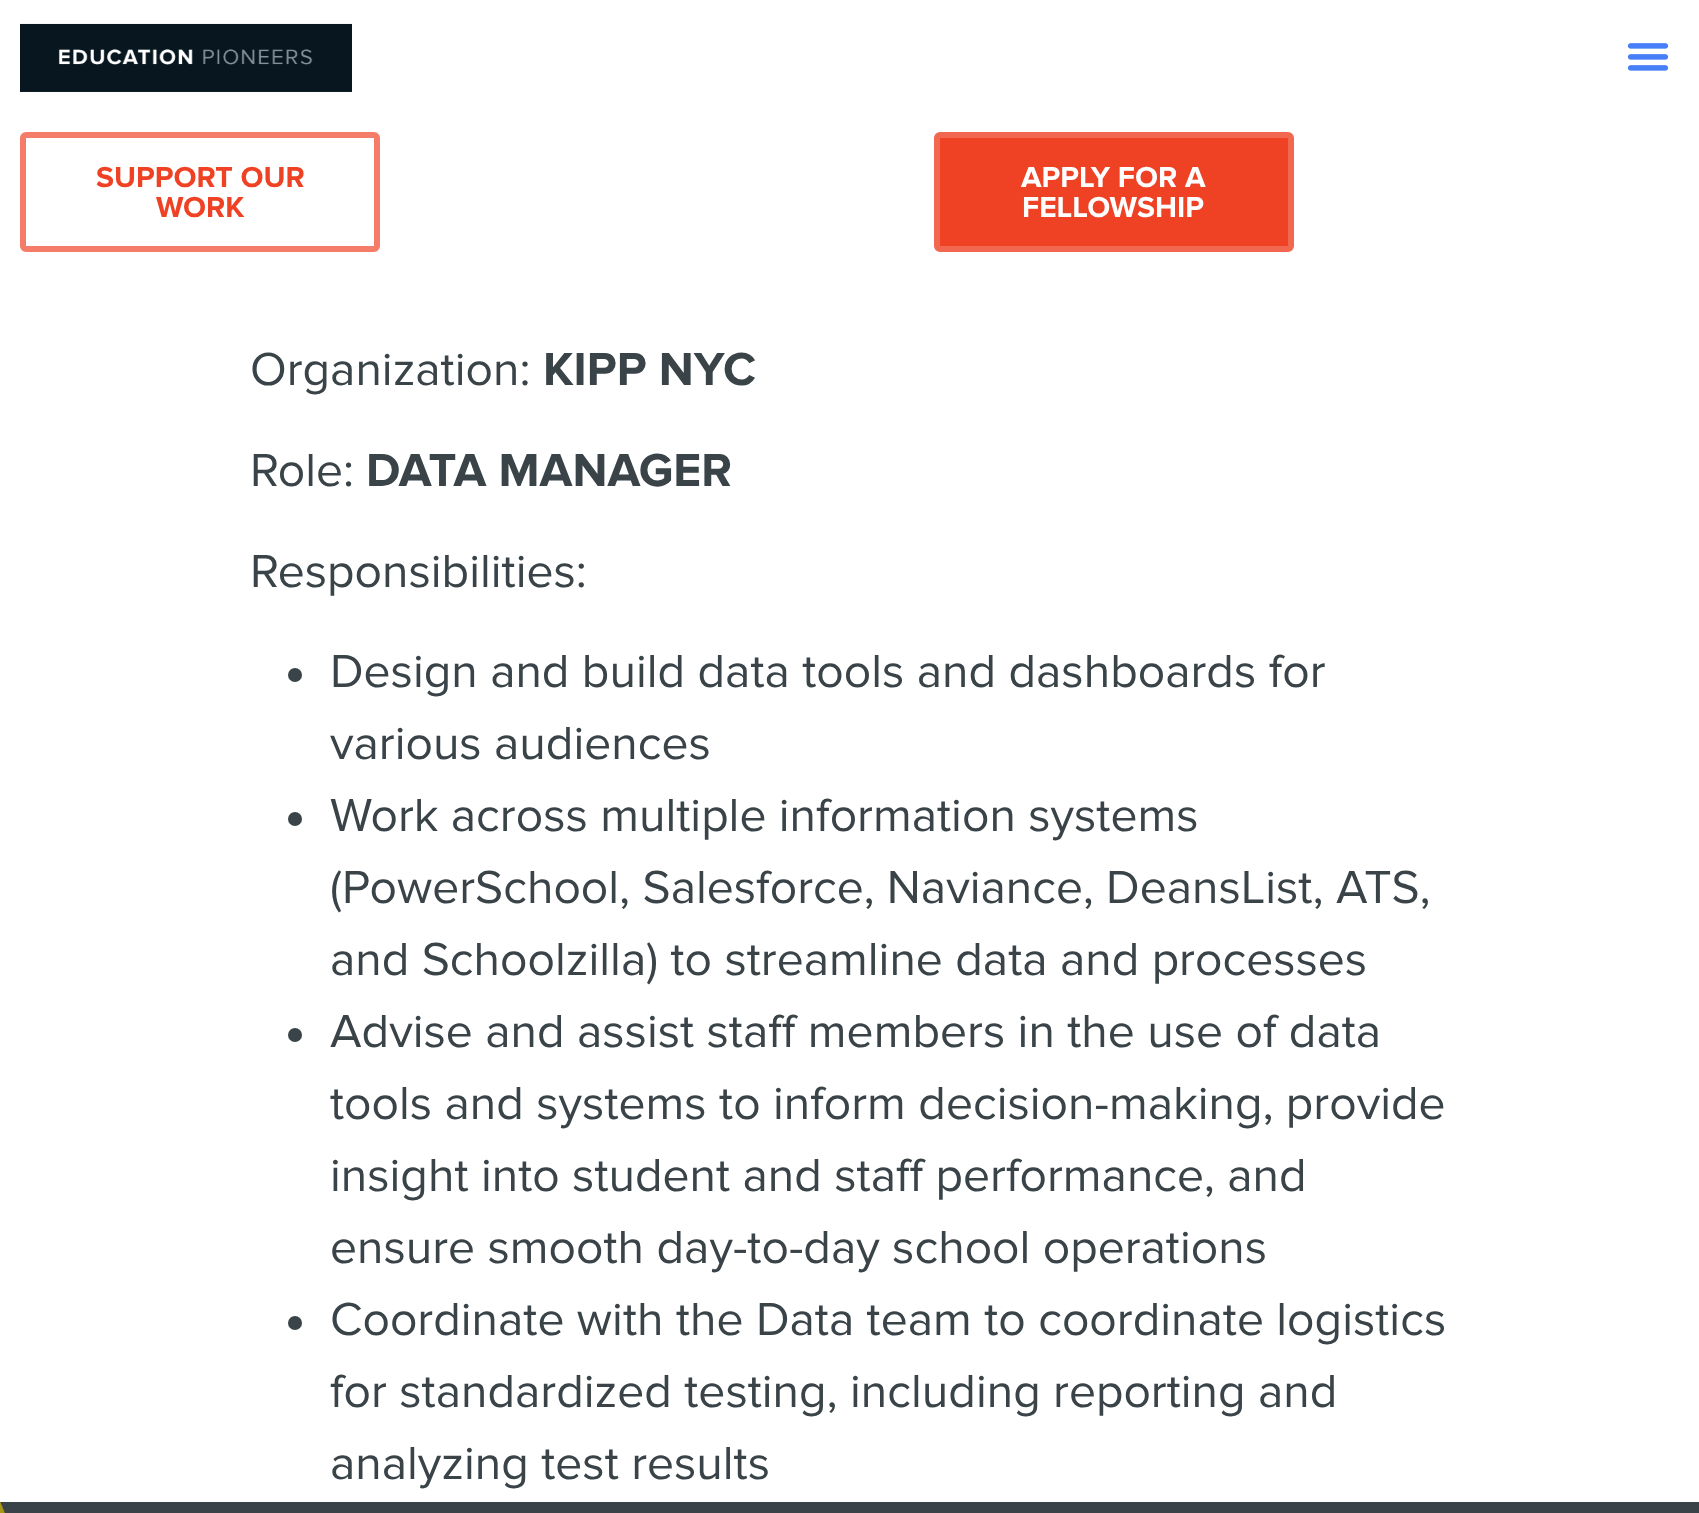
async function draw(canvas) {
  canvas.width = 1699;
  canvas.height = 1513;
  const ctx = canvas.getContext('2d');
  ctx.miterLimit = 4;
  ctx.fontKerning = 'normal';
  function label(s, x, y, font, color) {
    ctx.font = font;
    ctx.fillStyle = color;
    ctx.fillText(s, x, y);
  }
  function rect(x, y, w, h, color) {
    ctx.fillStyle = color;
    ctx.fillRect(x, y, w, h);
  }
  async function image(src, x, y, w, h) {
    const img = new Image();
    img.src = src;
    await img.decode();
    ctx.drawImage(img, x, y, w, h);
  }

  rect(0, 0, 1699, 1513, '#fff');
  await image('assets/img1.png', 20, 23, 332, 69);
  await image('assets/img2.png', 1627, 43, 42, 28);
  ctx.beginPath();
  ctx.roundRect(23, 135, 354, 114, 3);
  ctx.strokeStyle = '#f47c68';
  ctx.lineWidth = 6;
  ctx.stroke();
  label('SUPPORT OUR', 96, 187, 'bold 30px Proxima Nova', '#ef4123');
  label('WORK', 156, 217, 'bold 30px Proxima Nova', '#ef4123');
  ctx.beginPath();
  ctx.roundRect(937, 135, 354, 114, 3);
  ctx.fill();
  ctx.strokeStyle = '#f2674f';
  ctx.stroke();
  label('APPLY FOR A', 1021, 187, 'bold 30px Proxima Nova', '#fff');
  label('FELLOWSHIP', 1022, 217, 'bold 30px Proxima Nova', '#fff');
  label('Organization:', 250, 385, '48px Proxima Nova', '#3a4448');
  label('KIPP NYC', 543, 385, 'bold 48px Proxima Nova', '#3a4448');
  label('Role:', 250, 486, '48px Proxima Nova', '#3a4448');
  label('DATA MANAGER', 366, 486, 'bold 48px Proxima Nova', '#3a4448');
  label('Responsibilities:', 250, 587, '48px Proxima Nova', '#3a4448');
  ctx.beginPath();
  ctx.arc(295, 675, 7, 0, 2 * Math.PI);
  ctx.fill();
  label('Design and build data tools and dashboards for', 330, 687, '48px Proxima Nova', '#3a4448');
  label('various audiences', 330, 759, '48px Proxima Nova', '#3a4448');
  ctx.beginPath();
  ctx.arc(295, 819, 7, 0, 2 * Math.PI);
  ctx.fill();
  label('Work across multiple information systems', 330, 831, '48px Proxima Nova', '#3a4448');
  label('(PowerSchool, Salesforce, Naviance, DeansList, ATS,', 330, 903, '48px Proxima Nova', '#3a4448');
  label('and Schoolzilla) to streamline data and processes', 330, 975, '48px Proxima Nova', '#3a4448');
  ctx.beginPath();
  ctx.arc(295, 1035, 7, 0, 2 * Math.PI);
  ctx.fill();
  label('Advise and assist staff members in the use of data', 330, 1047, '48px Proxima Nova', '#3a4448');
  label('tools and systems to inform decision-making, provide', 330, 1119, '48px Proxima Nova', '#3a4448');
  label('insight into student and staff performance, and', 330, 1191, '48px Proxima Nova', '#3a4448');
  label('ensure smooth day-to-day school operations', 330, 1263, '48px Proxima Nova', '#3a4448');
  ctx.beginPath();
  ctx.arc(295, 1323, 7, 0, 2 * Math.PI);
  ctx.fill();
  label('Coordinate with the Data team to coordinate logistics', 330, 1335, '48px Proxima Nova', '#3a4448');
  label('for standardized testing, including reporting and', 330, 1407, '48px Proxima Nova', '#3a4448');
  label('analyzing test results', 330, 1479, '48px Proxima Nova', '#3a4448');
  rect(0, 1502, 1699, 11, '#3a4448');
  await image('assets/img3.png', 0, 1502, 5, 11);
}

draw(document.querySelector('canvas'));
